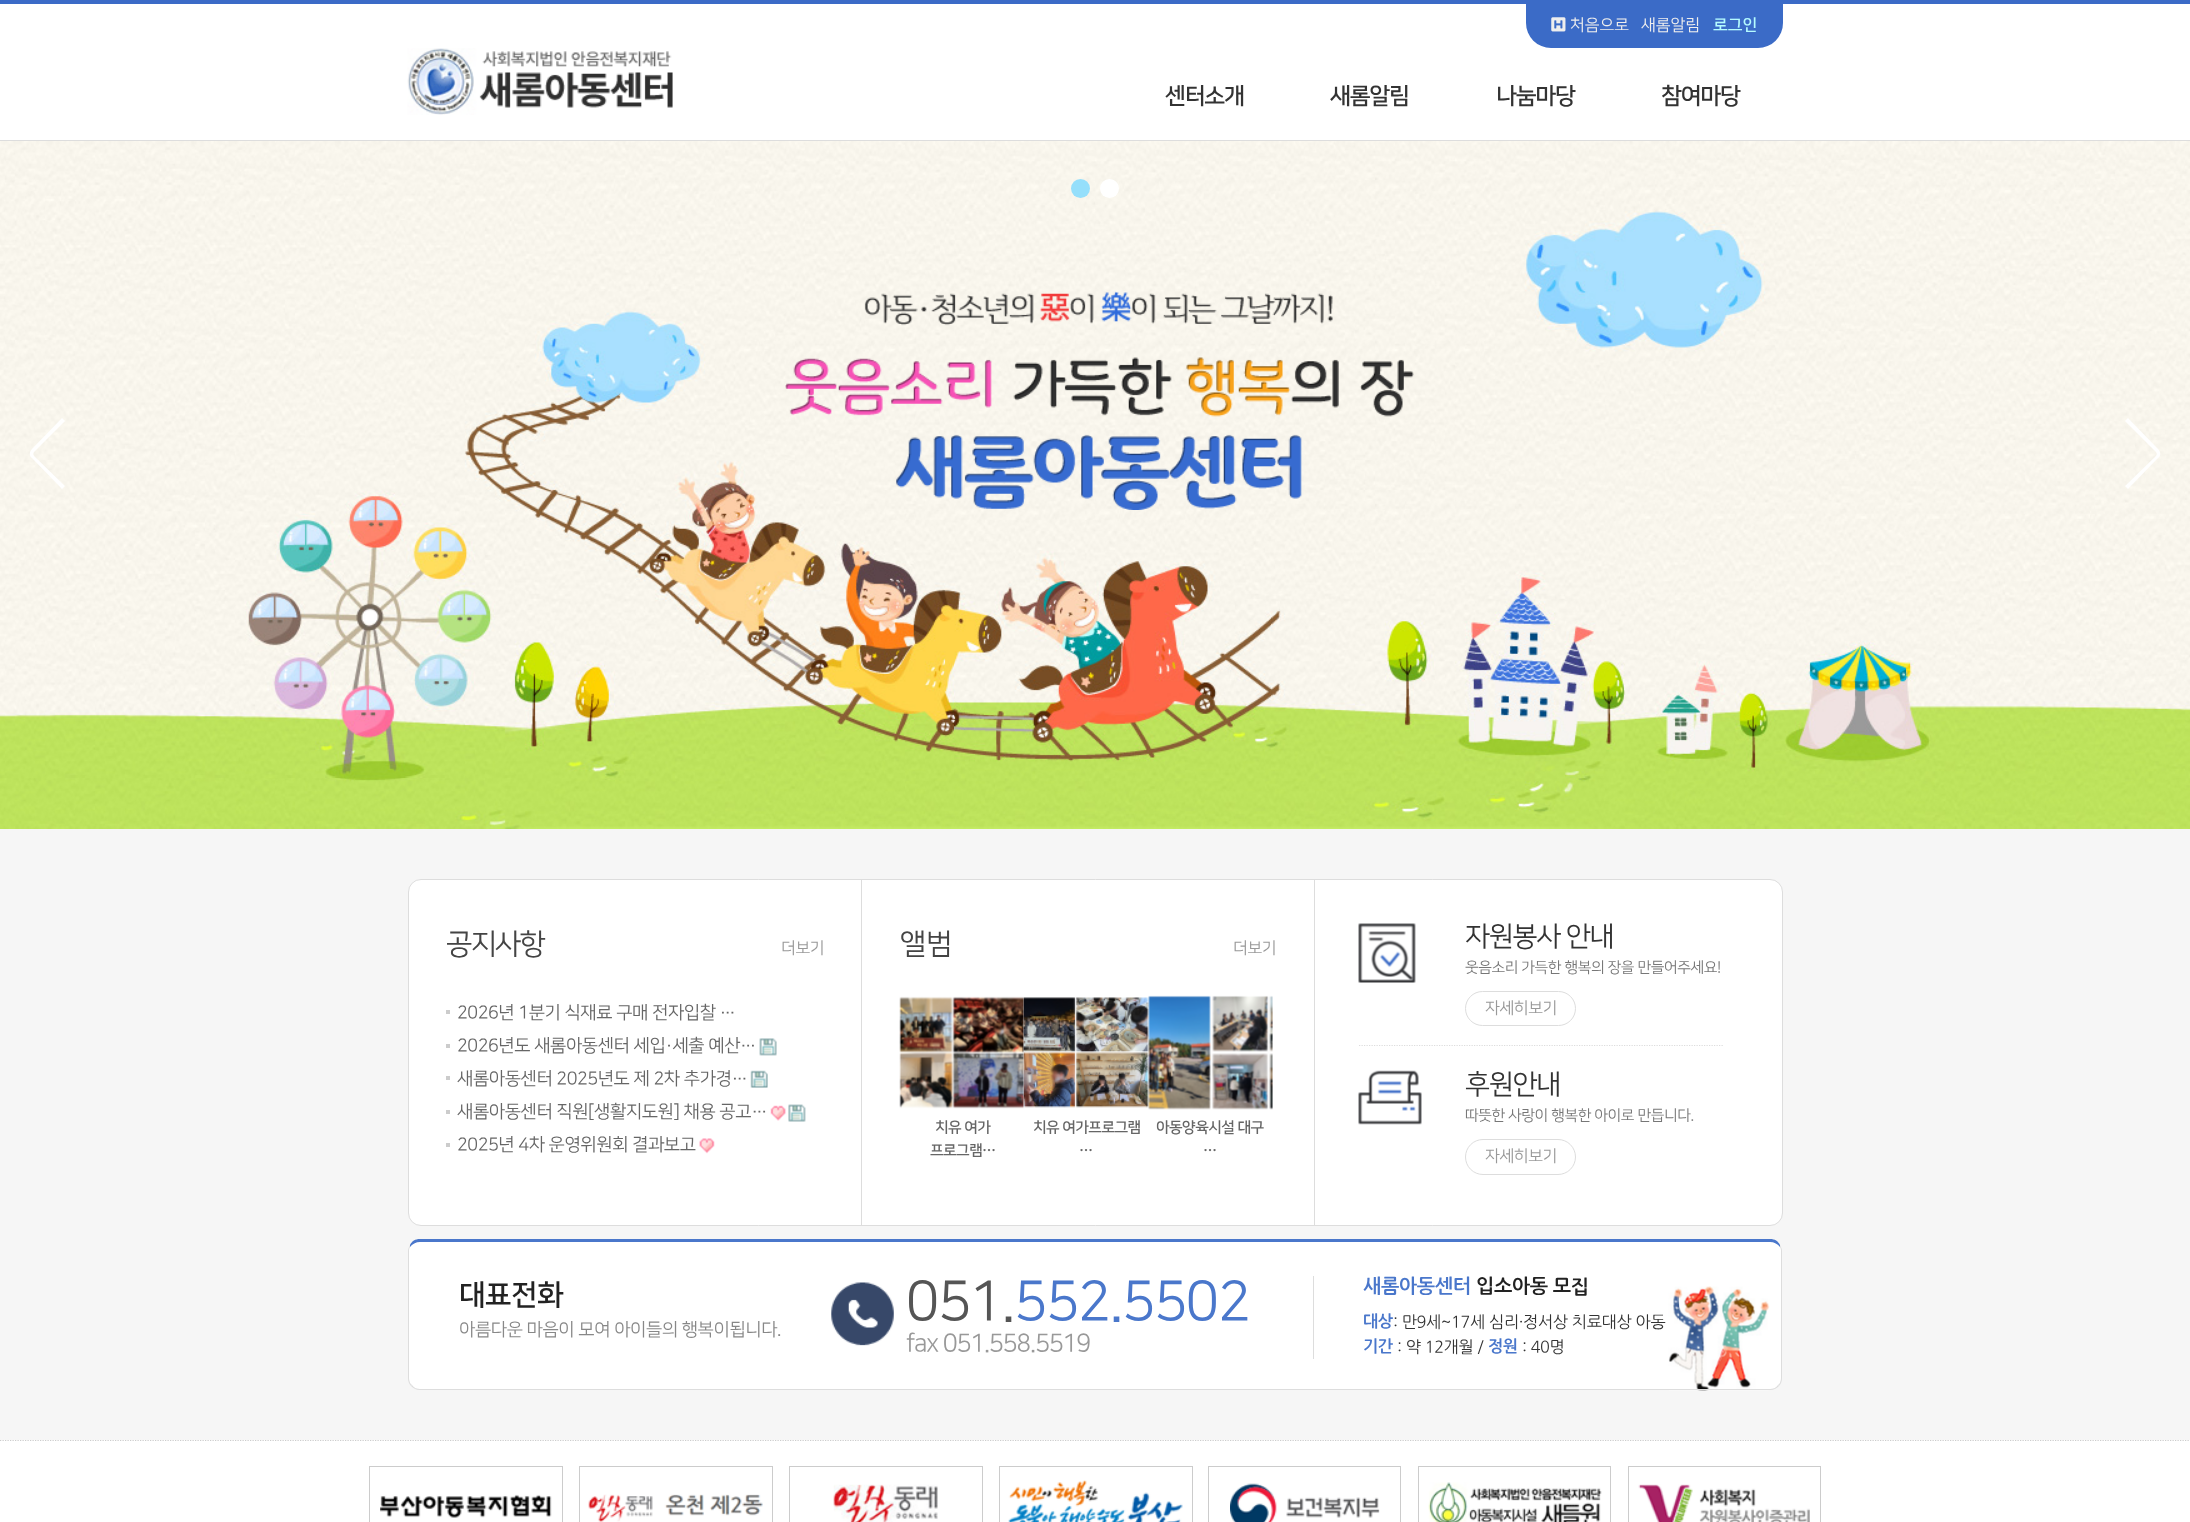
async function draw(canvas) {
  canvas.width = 2190;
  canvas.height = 1522;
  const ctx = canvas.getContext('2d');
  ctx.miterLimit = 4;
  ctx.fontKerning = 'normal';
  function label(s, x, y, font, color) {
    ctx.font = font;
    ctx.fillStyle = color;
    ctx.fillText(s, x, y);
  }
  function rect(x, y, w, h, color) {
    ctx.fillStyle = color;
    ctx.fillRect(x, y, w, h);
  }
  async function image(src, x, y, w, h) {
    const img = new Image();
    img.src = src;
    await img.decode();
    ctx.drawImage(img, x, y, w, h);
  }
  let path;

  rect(0, 0, 2190, 1522, '#fff');
  rect(0, 140, 2190, 1, '#ddd');
  rect(0, 0, 2190, 4, '#3b6bc7');
  ctx.beginPath();
  ctx.roundRect(1526, 4, 257, 44, [0, 0, 25, 25]);
  ctx.fill();
  await image('assets/img1.png', 1551, 17, 15, 15);
  label('처음으로', 1570, 30, '16.25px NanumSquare', '#eee');
  label('새롬알림', 1641, 30, '16.25px NanumSquare', '#eee');
  label('로그인', 1713, 30, 'bold 16.25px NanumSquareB', '#b5fbff');
  await image('assets/img2.png', 407, 48, 266, 67);
  ctx.letterSpacing = '-1.25px';
  label('센터소개', 1165, 103, 'bold 23px NanumSquareB', '#333');
  label('새롬알림', 1330, 103, 'bold 23px NanumSquareB', '#333');
  label('나눔마당', 1496, 103, 'bold 23px NanumSquareB', '#333');
  label('참여마당', 1661, 103, 'bold 23px NanumSquareB', '#333');
  await image('assets/img3.png', 0, 141, 2190, 688);
  ctx.fillStyle = '#95dffb';
  ctx.beginPath();
  ctx.arc(1080.5, 188.5, 9.5, 0, 2 * Math.PI);
  ctx.fill();
  ctx.fillStyle = '#fff';
  ctx.beginPath();
  ctx.arc(1109.5, 188.5, 9.5, 0, 2 * Math.PI);
  ctx.fill();
  path = new Path2D('M62 418L98 454L62 489L32 458C29 456 29 452 32 449ZM65 421L98 454L65 486L34 456C33 455 33 453 34 452Z');
  ctx.fill(path, 'evenodd');
  path = new Path2D('M2128 489L2092 454L2128 418L2158 449C2161 452 2161 456 2158 458ZM2125 486L2092 454L2125 421L2156 452C2157 453 2157 455 2156 456Z');
  ctx.fill(path, 'evenodd');
  await image('assets/img4.png', 785, 291, 629, 219);
  rect(0, 829, 2190, 611, '#f6f6f6');
  ctx.fillStyle = '#fff';
  ctx.beginPath();
  ctx.roundRect(408.5, 879.5, 1374, 346, 12.5);
  ctx.fill();
  ctx.strokeStyle = '#ddd';
  ctx.stroke();
  ctx.letterSpacing = '-2px';
  label('공지사항', 446, 953, '29px NanumSquare', '#444');
  ctx.letterSpacing = '-0.4px';
  label('더보기', 781, 953, '16.25px NanumSquare', '#999');
  rect(446, 1010, 4, 4, '#ccc');
  label('2026년 1분기 식재료 구매 전자입찰 …', 457, 1018, '17.9px NanumSquare', '#666');
  rect(446, 1044, 4, 4, '#ccc');
  label('2026년도 새롬아동센터 세입·세출 예산…', 457, 1051, '17.9px NanumSquare', '#666');
  await image('assets/img5.png', 759, 1038, 18, 18);
  rect(446, 1076, 4, 4, '#ccc');
  label('새롬아동센터 2025년도 제 2차 추가경…', 457, 1084, '17.9px NanumSquare', '#666');
  await image('assets/img6.png', 750, 1070, 18, 18);
  rect(446, 1110, 4, 4, '#ccc');
  label('새롬아동센터 직원[생활지도원] 채용 공고…', 457, 1117, '17.9px NanumSquare', '#666');
  await image('assets/img7.png', 770, 1105, 16, 16);
  await image('assets/img8.png', 788, 1104, 18, 18);
  rect(446, 1143, 4, 4, '#ccc');
  label('2025년 4차 운영위원회 결과보고', 457, 1150, '17.9px NanumSquare', '#666');
  await image('assets/img9.png', 699, 1138, 16, 16);
  rect(1314, 880, 1, 345, '#ddd');
  rect(861, 880, 1, 345, '#ddd');
  label('앨범', 900, 953, '29px NanumSquare', '#444');
  label('더보기', 1233, 953, '16.25px NanumSquare', '#999');
  await image('assets/img10.png', 899, 996, 126, 113);
  ctx.letterSpacing = '-0.6px';
  label('치유 여가', 935, 1132, 'bold 15px NanumSquareB', '#666');
  label('프로그램', 930, 1155, 'bold 15px NanumSquareB', '#666');
  label('…', 982, 1155, 'bold 15px NanumGothic', '#666');
  await image('assets/img11.png', 1023, 997, 126, 111);
  label('치유 여가프로그램', 1033, 1132, 'bold 15px NanumSquareB', '#666');
  label('…', 1079, 1155, 'bold 15px NanumGothic', '#666');
  await image('assets/img12.png', 1148, 995, 125, 115);
  label('아동양육시설 대구', 1156, 1132, 'bold 15px NanumSquareB', '#666');
  label('…', 1203, 1155, 'bold 15px NanumGothic', '#666');
  await image('assets/img13.png', 1358, 923, 58, 60);
  path = new Path2D('M1359 1045.5H1724');
  ctx.lineWidth = 1.2;
  ctx.setLineDash([1.25, 1.25]);
  ctx.stroke(path);
  ctx.letterSpacing = '-1.25px';
  label('자원봉사 안내', 1465, 945, '27.5px NanumSquare', '#333');
  ctx.letterSpacing = '-0.4px';
  label('웃음소리 가득한 행복의 장을 만들어주세요!', 1465, 972, '15px NanumSquare', '#777');
  ctx.beginPath();
  ctx.roundRect(1465.5, 991.5, 110, 34, 17);
  ctx.lineWidth = 1;
  ctx.setLineDash([]);
  ctx.stroke();
  label('자세히보기', 1485, 1013, '16.25px NanumSquare', '#999');
  await image('assets/img14.png', 1358, 1070, 64, 55);
  ctx.letterSpacing = '-1.25px';
  label('후원안내', 1465, 1093, '27.5px NanumSquare', '#333');
  ctx.letterSpacing = '-0.4px';
  label('따뜻한 사랑이 행복한 아이로 만듭니다.', 1465, 1120, '15px NanumSquare', '#777');
  ctx.beginPath();
  ctx.roundRect(1465.5, 1139.5, 110, 35, 17.5);
  ctx.stroke();
  label('자세히보기', 1485, 1161, '16.25px NanumSquare', '#999');
  ctx.fillStyle = '#fff';
  path = new Path2D('M420 1242H1770C1776 1242 1781 1246 1781 1251V1378C1781 1384 1776 1389 1770 1389H420C414 1389 409 1384 409 1378V1251C409 1246 414 1242 420 1242Z');
  ctx.fill(path);
  await image('assets/img15.png', 1668, 1286, 102, 105);
  ctx.fillStyle = '#4a77cb';
  path = new Path2D('M420 1239C415 1239 412 1241 410 1245V1247C412 1244 416 1242 420 1242H1770C1774 1242 1778 1244 1780 1247V1245C1778 1241 1775 1239 1770 1239Z');
  ctx.fill(path);
  ctx.fillStyle = '#ddd';
  path = new Path2D('M1780 1245C1781 1247 1782 1249 1782 1251V1378C1782 1381 1781 1384 1779 1386L1778 1385C1780 1384 1781 1381 1781 1378V1251C1781 1250 1781 1248 1780 1247Z');
  ctx.fill(path);
  path = new Path2D('M420 1390H1770C1774 1390 1777 1388 1779 1386L1778 1385C1776 1388 1773 1389 1770 1389H420C417 1389 414 1388 412 1385L411 1386C413 1388 416 1390 420 1390Z');
  ctx.fill(path);
  path = new Path2D('M410 1245C409 1247 408 1249 408 1251V1378C408 1381 409 1384 411 1386L412 1385C410 1384 409 1381 409 1378V1251C409 1250 409 1248 410 1247Z');
  ctx.fill(path);
  label('대표전화', 459, 1304, 'bold 29px NanumSquareB', '#222');
  label('아름다운 마음이 모여 아이들의 행복이됩니다.', 459, 1335, '17.9px NanumSquare', '#888');
  await image('assets/img16.png', 831, 1282, 63, 64);
  ctx.letterSpacing = '-1.25px';
  label('051.', 906, 1319, '55.25px NanumSquare', '#555');
  label('552.5502', 1014, 1319, '55.25px NanumSquare', '#4a77cb');
  label('fax 051.558.5519', 906, 1351, '25px NanumSquare', '#999');
  rect(1313, 1276, 1, 83, '#ddd');
  ctx.letterSpacing = '-0.4px';
  label('새롬아동센터', 1363, 1293, 'bold 19.5px NanumGothic', '#4a77cb');
  label('입소아동 모집', 1476, 1293, 'bold 19.5px NanumGothic', '#222');
  label('대상', 1363, 1327, 'bold 16.25px NanumGothic', '#4a77cb');
  label(': 만9세~17세 심리·정서상 치료대상 아동', 1393, 1327, '16.25px NanumGothic', '#333');
  label('기간', 1363, 1352, 'bold 16.25px NanumGothic', '#4a77cb');
  label(': 약 12개월 /', 1397, 1352, '16.25px NanumGothic', '#333');
  label('정원', 1488, 1352, 'bold 16.25px NanumGothic', '#4a77cb');
  label(': 40명', 1522, 1352, '16.25px NanumGothic', '#333');
  path = new Path2D('M0 1440.5H2190');
  ctx.strokeStyle = '#ccc';
  ctx.lineWidth = 1.2;
  ctx.setLineDash([1.25, 1.25]);
  ctx.stroke(path);
  ctx.lineWidth = 1;
  ctx.setLineDash([]);
  ctx.strokeRect(369.5, 1466.5, 193, 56);
  await image('assets/img17.png', 380, 1494, 172, 24);
  ctx.strokeRect(579.5, 1466.5, 193, 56);
  await image('assets/img18.png', 588, 1494, 175, 28);
  ctx.strokeRect(789.5, 1466.5, 193, 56);
  await image('assets/img19.png', 833, 1484, 105, 38);
  ctx.strokeRect(999.5, 1466.5, 193, 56);
  await image('assets/img20.png', 1008, 1480, 175, 42);
  ctx.strokeRect(1208.5, 1466.5, 192, 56);
  await image('assets/img21.png', 1230, 1483, 150, 39);
  ctx.strokeRect(1418.5, 1466.5, 192, 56);
  await image('assets/img22.png', 1428, 1482, 174, 40);
  ctx.strokeRect(1628.5, 1466.5, 192, 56);
  await image('assets/img23.png', 1638, 1484, 172, 38);
}

draw(document.querySelector('canvas'));
